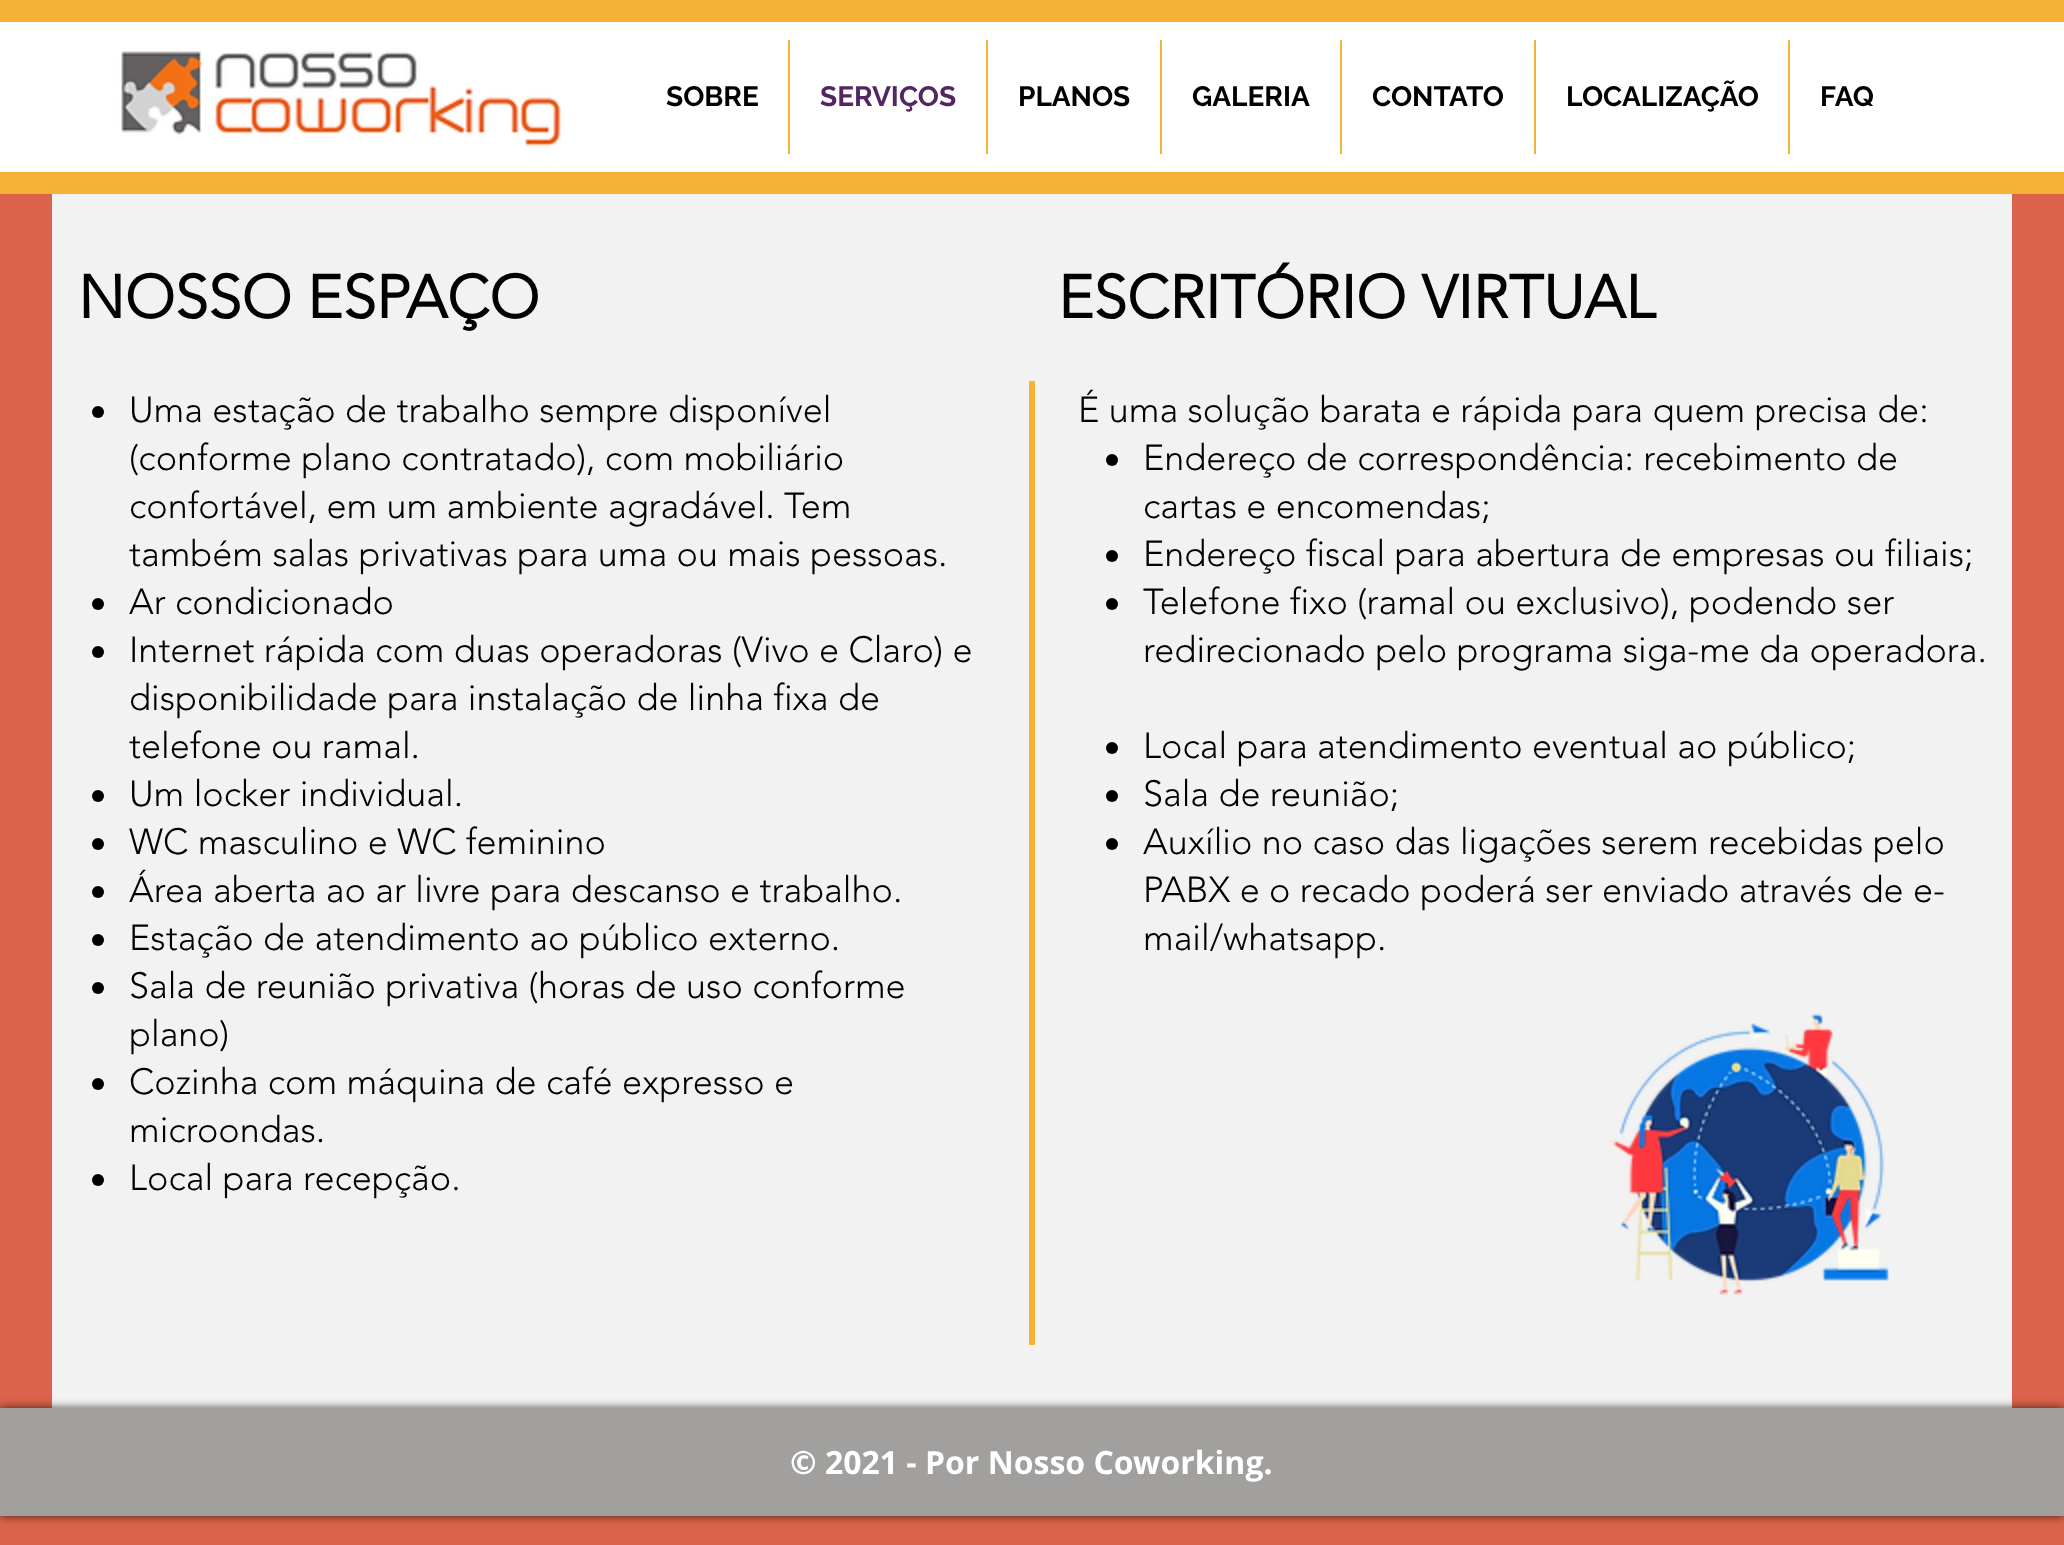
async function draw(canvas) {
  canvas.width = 2064;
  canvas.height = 1545;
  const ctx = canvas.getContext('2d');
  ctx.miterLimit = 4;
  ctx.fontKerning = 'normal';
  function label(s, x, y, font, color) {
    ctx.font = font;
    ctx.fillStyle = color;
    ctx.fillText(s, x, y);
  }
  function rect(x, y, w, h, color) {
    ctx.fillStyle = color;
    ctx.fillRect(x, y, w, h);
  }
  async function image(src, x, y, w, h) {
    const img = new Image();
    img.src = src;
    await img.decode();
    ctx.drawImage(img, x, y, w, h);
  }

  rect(0, 0, 2064, 1545, '#db634b');
  rect(0, 22, 2064, 150, '#fff');
  rect(0, 0, 2064, 22, '#f5b236');
  rect(0, 172, 2064, 22, '#f5b236');
  await image('assets/img1.png', 76, 42, 500, 108);
  label('SOBRE', 666, 106, 'bold 28px Raleway', '#000');
  rect(788, 40, 2, 114, '#f5b236');
  label('SERVIÇOS', 820, 106, 'bold 28px Raleway', '#532563');
  rect(986, 40, 2, 114, '#f5b236');
  label('PLANOS', 1018, 106, 'bold 28px Raleway', '#000');
  rect(1160, 40, 2, 114, '#f5b236');
  label('GALERIA', 1192, 106, 'bold 28px Raleway', '#000');
  rect(1340, 40, 2, 114, '#f5b236');
  label('CONTATO', 1372, 106, 'bold 28px Raleway', '#000');
  rect(1534, 40, 2, 114, '#f5b236');
  label('LOCALIZAÇÃO', 1566, 106, 'bold 28px Raleway', '#000');
  rect(1788, 40, 2, 114, '#f5b236');
  label('FAQ', 1820, 106, 'bold 28px Raleway', '#000');
  rect(52, 194, 1960, 1214, '#f2f2f2');
  label('NOSSO ESPAÇO', 78, 318, 'bold 60px "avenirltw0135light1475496"', '#000');
  label('ESCRITÓRIO VIRTUAL', 1058, 318, 'bold 60px "avenirltw0135light1475496"', '#000');
  ctx.beginPath();
  ctx.arc(98, 412, 6, 0, 2 * Math.PI);
  ctx.fill();
  label('Uma estação de trabalho sempre disponível', 129, 422, '300 36px "avenirltw0135light1475496"', '#000');
  label('(conforme plano contratado), com mobiliário', 129, 470, '300 36px "avenirltw0135light1475496"', '#000');
  label('confortável, em um ambiente agradável. Tem', 129, 518, '300 36px "avenirltw0135light1475496"', '#000');
  label('também salas privativas para uma ou mais pessoas.', 129, 566, '300 36px "avenirltw0135light1475496"', '#000');
  ctx.beginPath();
  ctx.arc(98, 604, 6, 0, 2 * Math.PI);
  ctx.fill();
  label('Ar condicionado', 129, 614, '300 36px "avenirltw0135light1475496"', '#000');
  ctx.beginPath();
  ctx.arc(98, 652, 6, 0, 2 * Math.PI);
  ctx.fill();
  label('Internet rápida com duas operadoras (Vivo e Claro) e', 129, 662, '300 36px "avenirltw0135light1475496"', '#000');
  label('disponibilidade para instalação de linha fixa de', 129, 710, '300 36px "avenirltw0135light1475496"', '#000');
  label('telefone ou ramal.', 129, 758, '300 36px "avenirltw0135light1475496"', '#000');
  ctx.beginPath();
  ctx.arc(98, 796, 6, 0, 2 * Math.PI);
  ctx.fill();
  label('Um locker individual.', 129, 806, '300 36px "avenirltw0135light1475496"', '#000');
  ctx.beginPath();
  ctx.arc(98, 844, 6, 0, 2 * Math.PI);
  ctx.fill();
  label('WC masculino e WC feminino', 129, 854, '300 36px "avenirltw0135light1475496"', '#000');
  ctx.beginPath();
  ctx.arc(98, 892, 6, 0, 2 * Math.PI);
  ctx.fill();
  label('Área aberta ao ar livre para descanso e trabalho.', 129, 902, '300 36px "avenirltw0135light1475496"', '#000');
  ctx.beginPath();
  ctx.arc(98, 940, 6, 0, 2 * Math.PI);
  ctx.fill();
  label('Estação de atendimento ao público externo.', 129, 950, '300 36px "avenirltw0135light1475496"', '#000');
  ctx.beginPath();
  ctx.arc(98, 988, 6, 0, 2 * Math.PI);
  ctx.fill();
  label('Sala de reunião privativa (horas de uso conforme', 129, 998, '300 36px "avenirltw0135light1475496"', '#000');
  label('plano)', 129, 1046, '300 36px "avenirltw0135light1475496"', '#000');
  ctx.beginPath();
  ctx.arc(98, 1084, 6, 0, 2 * Math.PI);
  ctx.fill();
  label('Cozinha com máquina de café expresso e', 129, 1094, '300 36px "avenirltw0135light1475496"', '#000');
  label('microondas.', 129, 1142, '300 36px "avenirltw0135light1475496"', '#000');
  ctx.beginPath();
  ctx.arc(98, 1180, 6, 0, 2 * Math.PI);
  ctx.fill();
  label('Local para recepção.', 129, 1190, '300 36px "avenirltw0135light1475496"', '#000');
  rect(1029, 381, 6, 964, '#f5b236');
  label('É uma solução barata e rápida para quem precisa de:', 1078, 422, '300 36px "avenirltw0135light1475496"', '#000');
  ctx.beginPath();
  ctx.arc(1112, 460, 6, 0, 2 * Math.PI);
  ctx.fill();
  label('Endereço de correspondência: recebimento de', 1143, 470, '300 36px "avenirltw0135light1475496"', '#000');
  label('cartas e encomendas;', 1143, 518, '300 36px "avenirltw0135light1475496"', '#000');
  ctx.beginPath();
  ctx.arc(1112, 556, 6, 0, 2 * Math.PI);
  ctx.fill();
  label('Endereço fiscal para abertura de empresas ou filiais;', 1143, 566, '300 36px "avenirltw0135light1475496"', '#000');
  ctx.beginPath();
  ctx.arc(1112, 604, 6, 0, 2 * Math.PI);
  ctx.fill();
  label('Telefone fixo (ramal ou exclusivo), podendo ser', 1143, 614, '300 36px "avenirltw0135light1475496"', '#000');
  label('redirecionado pelo programa siga-me da operadora.', 1143, 662, '300 36px "avenirltw0135light1475496"', '#000');
  ctx.beginPath();
  ctx.arc(1112, 748, 6, 0, 2 * Math.PI);
  ctx.fill();
  label('Local para atendimento eventual ao público;', 1143, 758, '300 36px "avenirltw0135light1475496"', '#000');
  ctx.beginPath();
  ctx.arc(1112, 796, 6, 0, 2 * Math.PI);
  ctx.fill();
  label('Sala de reunião;', 1143, 806, '300 36px "avenirltw0135light1475496"', '#000');
  ctx.beginPath();
  ctx.arc(1112, 844, 6, 0, 2 * Math.PI);
  ctx.fill();
  label('Auxílio no caso das ligações serem recebidas pelo', 1143, 854, '300 36px "avenirltw0135light1475496"', '#000');
  label('PABX e o recado poderá ser enviado através de e-', 1143, 902, '300 36px "avenirltw0135light1475496"', '#000');
  label('mail/whatsapp.', 1143, 950, '300 36px "avenirltw0135light1475496"', '#000');
  await image('assets/img2.png', 1609, 1013, 280, 282);
  ctx.fillStyle = '#000000b3';
  ctx.filter = 'blur(5px)';
  ctx.beginPath();
  ctx.rect(0, 1408, 2064, 108);
  ctx.fill();
  ctx.filter = 'none';
  rect(0, 1408, 2064, 108, '#a1a09e');
  label('© 2021 - Por Nosso Coworking.', 790, 1474, 'bold 32px Open Sans', '#fff');
}

draw(document.querySelector('canvas'));
